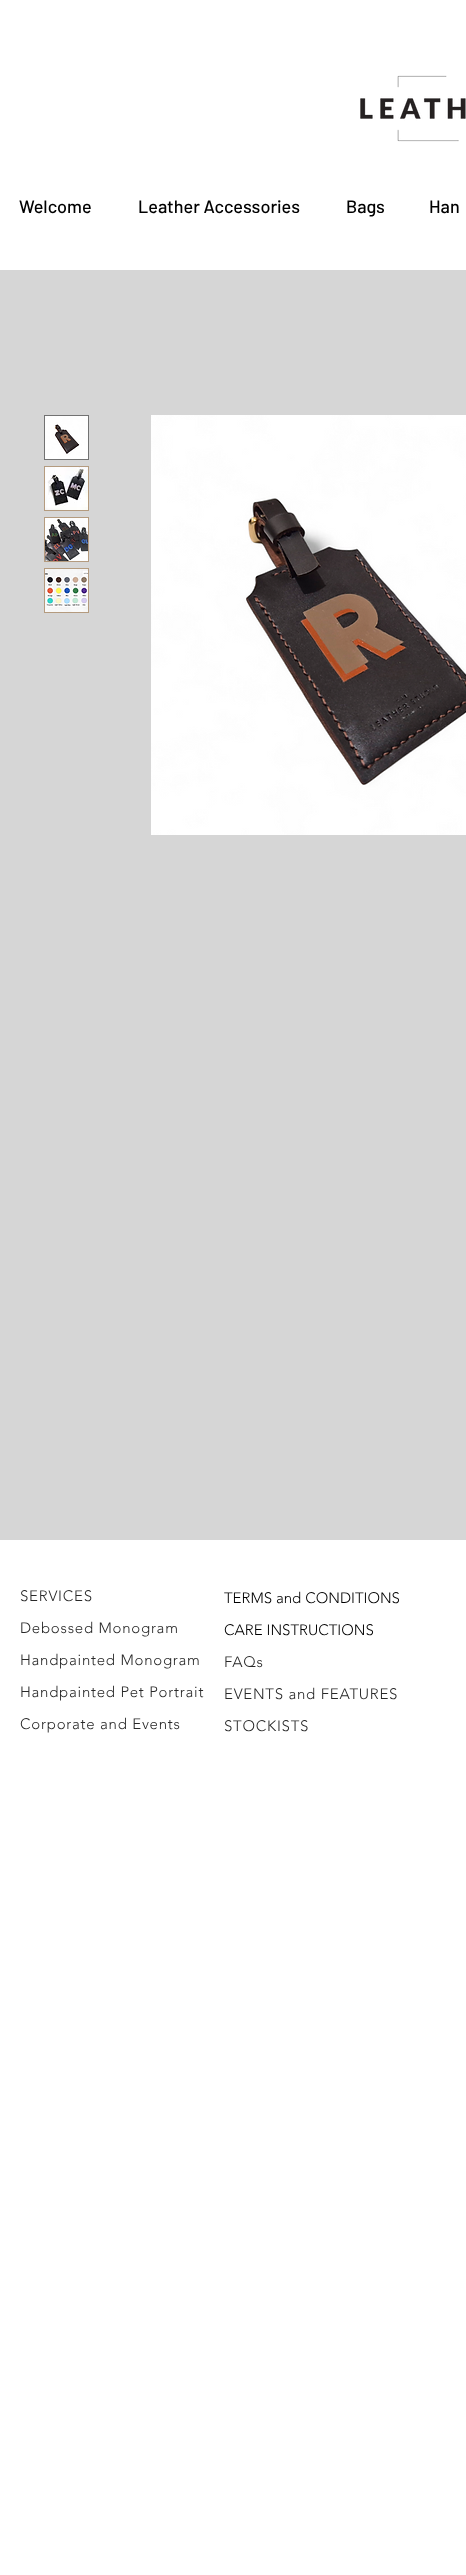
async function draw(canvas) {
  canvas.width = 466;
  canvas.height = 2575;
  const ctx = canvas.getContext('2d');
  ctx.miterLimit = 4;
  ctx.fontKerning = 'normal';
  function label(s, x, y, font, color) {
    ctx.font = font;
    ctx.fillStyle = color;
    ctx.fillText(s, x, y);
  }
  function rect(x, y, w, h, color) {
    ctx.fillStyle = color;
    ctx.fillRect(x, y, w, h);
  }
  async function image(src, x, y, w, h) {
    const img = new Image();
    img.src = src;
    await img.decode();
    ctx.drawImage(img, x, y, w, h);
  }

  rect(0, 0, 466, 2575, '#fff');
  await image('assets/img1.png', 360, 75, 106, 67);
  label('Welcome', 19, 213, '500 18px Barlow', '#000');
  label('Leather Accessories', 138, 213, '500 18px Barlow', '#000');
  label('Bags', 346, 213, '500 18px Barlow', '#000');
  label('Han', 429, 213, '500 18px Barlow', '#000');
  rect(0, 270, 466, 1270, '#d6d6d6');
  ctx.strokeStyle = '#727272';
  ctx.strokeRect(44.5, 415.5, 44, 44);
  await image('assets/img2.png', 45, 416, 43, 43);
  rect(44, 466, 45, 45, '#b49b7f');
  await image('assets/img3.png', 45, 467, 43, 43);
  rect(44, 517, 45, 45, '#b49b7f');
  await image('assets/img4.png', 45, 518, 43, 43);
  rect(44, 568, 45, 45, '#b49b7f');
  await image('assets/img5.png', 45, 569, 43, 43);
  await image('assets/img6.png', 151, 415, 315, 420);
  ctx.letterSpacing = '0.75px';
  label('SERVICES', 20, 1601, '300 15px "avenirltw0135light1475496"', '#292929');
  label('Debossed Monogram', 20, 1633, '300 15px "avenirltw0135light1475496"', '#292929');
  label('Handpainted Monogram', 20, 1665, '300 15px "avenirltw0135light1475496"', '#292929');
  label('Handpainted Pet Portrait', 20, 1697, '300 15px "avenirltw0135light1475496"', '#292929');
  label('Corporate and Events', 20, 1729, '300 15px "avenirltw0135light1475496"', '#292929');
  ctx.letterSpacing = '0px';
  label('TERMS and CONDITIONS', 224, 1603, '300 15px "avenirltw0135light1475496"', '#000');
  label('CARE INSTRUCTIONS', 224, 1635, '300 15px "avenirltw0135light1475496"', '#000');
  ctx.letterSpacing = '0.75px';
  label('FAQs', 224, 1667, '300 15px "avenirltw0135light1475496"', '#292929');
  label('EVENTS and FEATURES', 224, 1699, '300 15px "avenirltw0135light1475496"', '#292929');
  label('STOCKISTS', 224, 1731, '300 15px "avenirltw0135light1475496"', '#292929');
}

draw(document.querySelector('canvas'));
